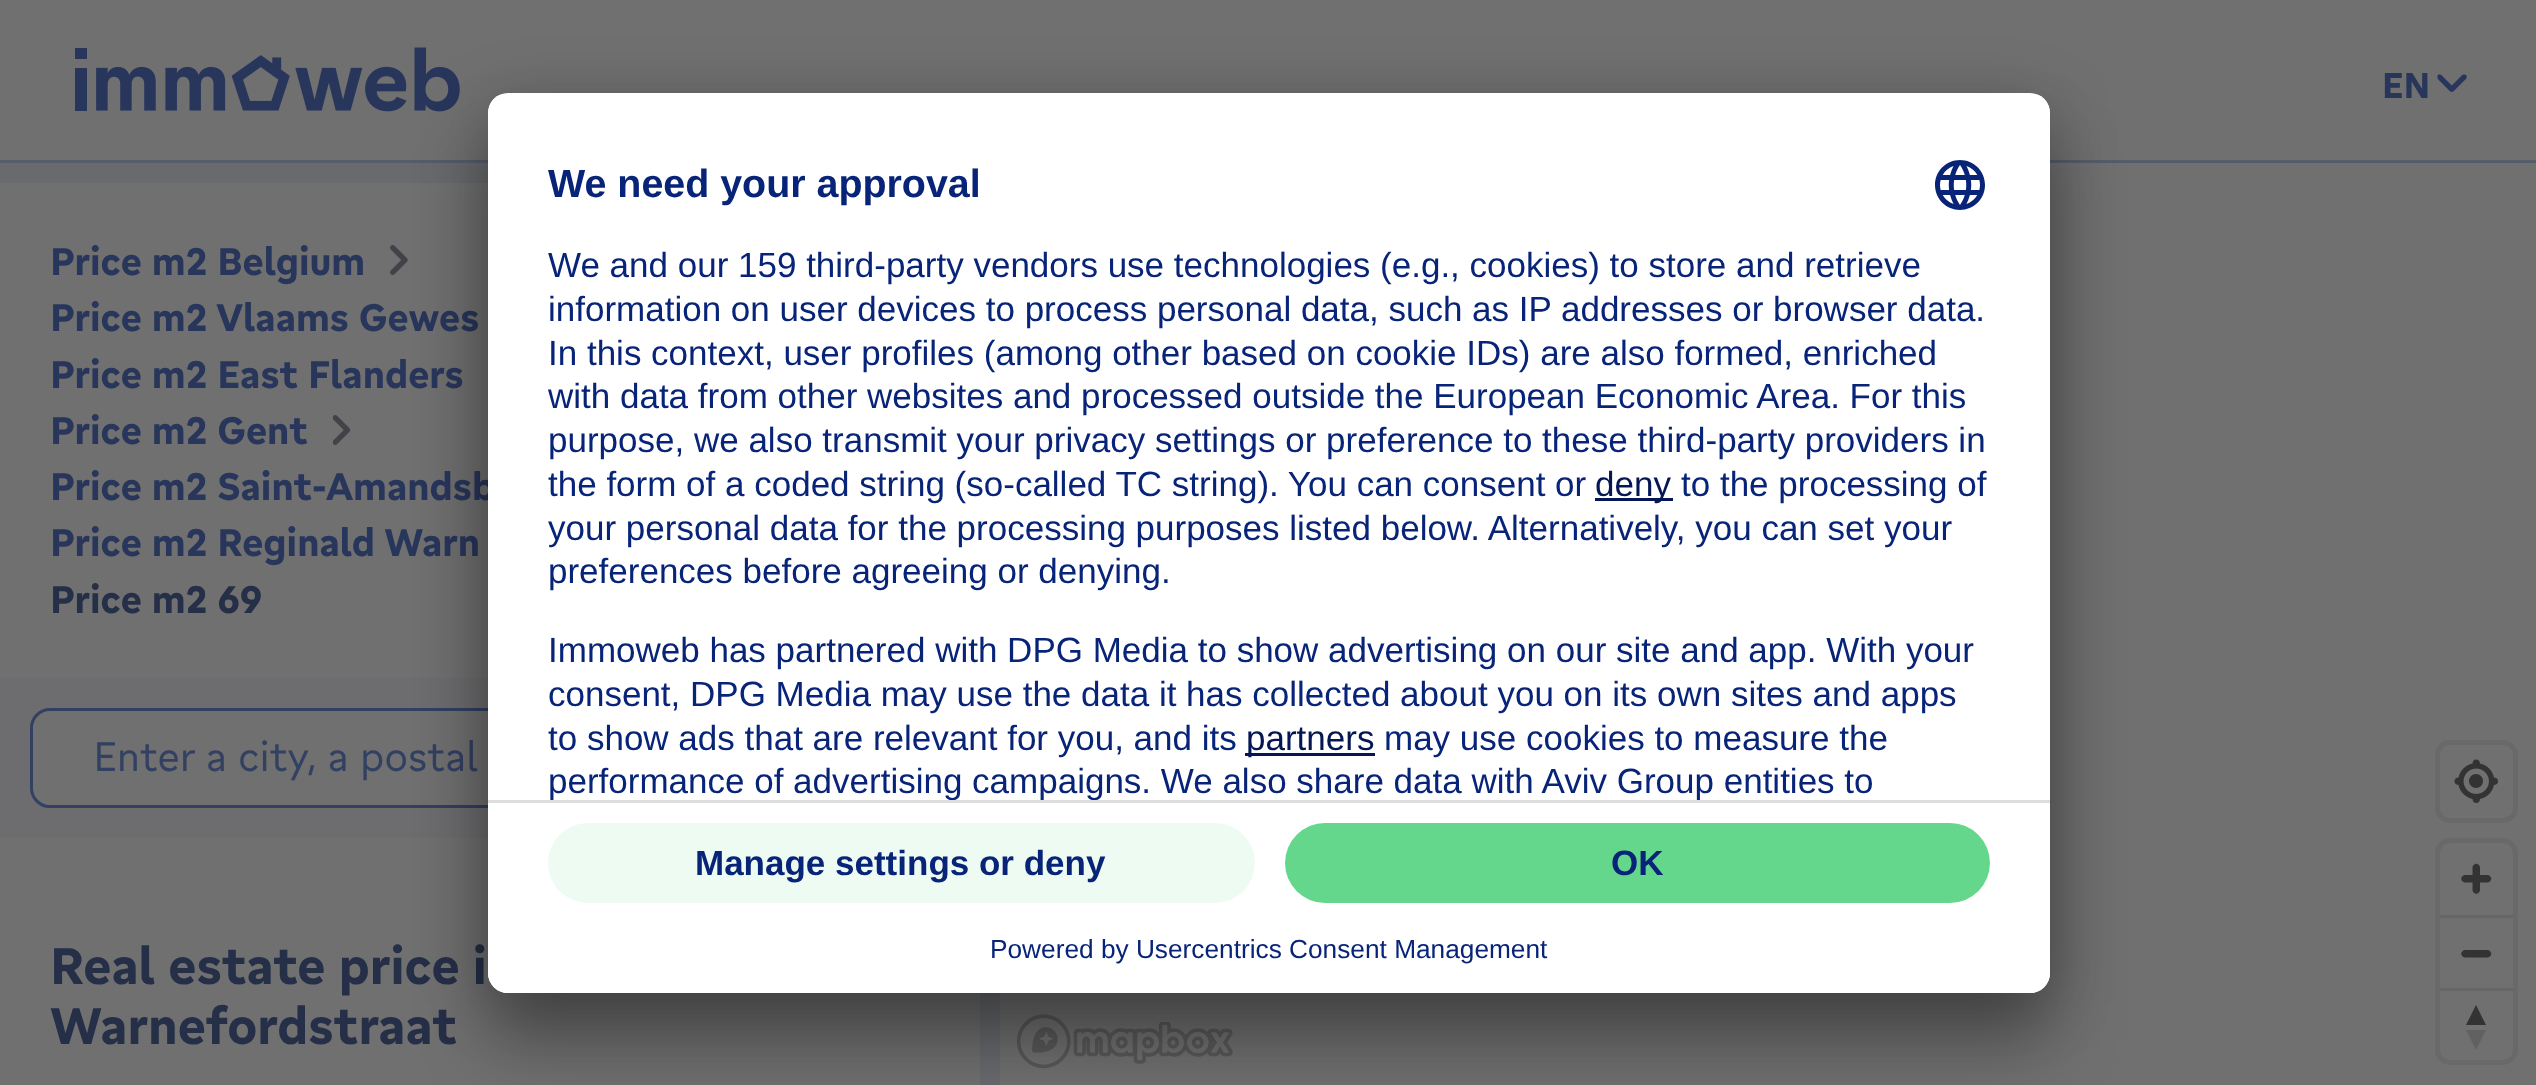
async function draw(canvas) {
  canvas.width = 2536;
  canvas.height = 1085;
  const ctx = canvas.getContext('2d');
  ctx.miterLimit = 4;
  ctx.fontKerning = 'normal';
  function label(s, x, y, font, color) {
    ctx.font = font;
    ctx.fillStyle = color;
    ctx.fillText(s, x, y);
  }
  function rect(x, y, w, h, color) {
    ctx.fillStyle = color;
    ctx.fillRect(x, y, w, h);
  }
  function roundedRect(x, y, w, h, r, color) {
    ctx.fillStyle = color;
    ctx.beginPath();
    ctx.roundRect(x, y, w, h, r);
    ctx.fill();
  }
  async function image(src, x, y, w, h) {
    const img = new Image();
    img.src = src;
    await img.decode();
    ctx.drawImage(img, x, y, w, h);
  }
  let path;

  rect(0, 0, 2536, 1085, '#707070');
  rect(0, 160, 2536, 3, '#565d6a');
  await image('assets/img1.png', 75, 47, 385, 65);
  label('EN', 2382, 98, 'bold 35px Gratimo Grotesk', '#29365c');
  await image('assets/img2.png', 2437, 74, 30, 18);
  rect(0, 163, 1000, 922, '#686a6d');
  rect(0, 183, 488, 495, '#707070');
  label('Price m2 Belgium', 50, 275, 'bold 37.5px Gratimo Grotesk', '#29365c');
  await image('assets/img3.png', 390, 245, 18, 30);
  label('Price m2 Vlaams Gewes', 50, 331, 'bold 37.5px Gratimo Grotesk', '#29365c');
  label('Price m2 East Flanders', 50, 388, 'bold 37.5px Gratimo Grotesk', '#29365c');
  label('Price m2 Gent', 50, 444, 'bold 37.5px Gratimo Grotesk', '#29365c');
  await image('assets/img4.png', 333, 415, 18, 30);
  label('Price m2 Saint-Amandsb', 50, 500, 'bold 37.5px Gratimo Grotesk', '#29365c');
  label('Price m2 Reginald Warn', 50, 556, 'bold 37.5px Gratimo Grotesk', '#29365c');
  label('Price m2 69', 50, 613, 'bold 37.5px Gratimo Grotesk', '#262f48');
  rect(0, 678, 488, 160, '#6d6d6f');
  ctx.fillStyle = '#707070';
  ctx.beginPath();
  ctx.roundRect(31.5, 709.5, 917, 97, 18.5);
  ctx.fill();
  ctx.strokeStyle = '#324062';
  ctx.lineWidth = 3;
  ctx.stroke();
  label('Enter a city, a postal', 93, 771, '40px Gratimo Grotesk', '#324062');
  rect(0, 838, 980, 247, '#707070');
  label('Real estate price i', 50, 984, 'bold 50px Gratimo Grotesk', '#262f48');
  label('Warnefordstraat', 50, 1044, 'bold 50px Gratimo Grotesk', '#262f48');
  await image('assets/img5.png', 1016, 1014, 217, 55);
  ctx.beginPath();
  ctx.roundRect(2437.5, 742.5, 78, 78, 12.5);
  ctx.strokeStyle = '#696969';
  ctx.lineWidth = 5;
  ctx.stroke();
  await image('assets/img6.png', 2454, 759, 44, 44);
  ctx.beginPath();
  ctx.roundRect(2437.5, 840.5, 78, 222, 12.5);
  ctx.stroke();
  await image('assets/img7.png', 2461, 863, 31, 31);
  rect(2440, 915, 73, 3, '#666');
  await image('assets/img8.png', 2461, 950, 31, 8);
  rect(2440, 988, 73, 3, '#666');
  ctx.fillStyle = '#333';
  path = new Path2D('M2466 1025L2476 1005L2486 1025Z');
  ctx.fill(path);
  ctx.fillStyle = '#616161';
  path = new Path2D('M2466 1030L2476 1050L2486 1030Z');
  ctx.fill(path);
  ctx.fillStyle = '#0000004d';
  ctx.filter = 'blur(35px)';
  ctx.beginPath();
  ctx.roundRect(488, 143, 1562, 900, 20);
  ctx.fill();
  ctx.filter = 'none';
  ctx.fillStyle = '#00000038';
  ctx.filter = 'blur(32.5px)';
  ctx.beginPath();
  ctx.roundRect(488, 105, 1562, 900, 20);
  ctx.fill();
  ctx.filter = 'none';
  roundedRect(488, 93, 1562, 900, 20, '#fff');
  ctx.save();
  ctx.beginPath();
  ctx.roundRect(488, 93, 1562, 900, 20);
  ctx.clip();
  ctx.beginPath();
  ctx.roundRect(488, 93, 1562, 707, [20, 20, 0, 0]);
  ctx.clip();
  rect(488, 95, 1562, 705, '#fff');
  ctx.restore();
  label('We need your approval', 548, 197, 'bold 39.4px Liberation Sans', '#082479');
  await image('assets/img9.png', 1935, 160, 50, 50);
  label('We and our 159 third-party vendors use technologies (e.g., cookies) to store and retrieve', 548, 277, '35px Liberation Sans', '#082479');
  label('information on user devices to process personal data, such as IP addresses or browser data.', 548, 321, '35px Liberation Sans', '#082479');
  label('In this context, user profiles (among other based on cookie IDs) are also formed, enriched', 548, 365, '35px Liberation Sans', '#082479');
  label('with data from other websites and processed outside the European Economic Area. For this', 548, 408, '35px Liberation Sans', '#082479');
  label('purpose, we also transmit your privacy settings or preference to these third-party providers in', 548, 452, '35px Liberation Sans', '#082479');
  label('the form of a coded string (so-called TC string). You can consent or', 548, 496, '35px Liberation Sans', '#082479');
  rect(1595, 498, 78, 3, '#041654');
  label('deny', 1595, 496, '35px Liberation Sans', '#041654');
  label('to the processing of', 1681, 496, '35px Liberation Sans', '#082479');
  label('your personal data for the processing purposes listed below. Alternatively, you can set your', 548, 540, '35px Liberation Sans', '#082479');
  label('preferences before agreeing or denying.', 548, 583, '35px Liberation Sans', '#082479');
  label('Immoweb has partnered with DPG Media to show advertising on our site and app. With your', 548, 662, '35px Liberation Sans', '#082479');
  label('consent, DPG Media may use the data it has collected about you on its own sites and apps', 548, 706, '35px Liberation Sans', '#082479');
  label('to show ads that are relevant for you, and its', 548, 750, '35px Liberation Sans', '#082479');
  rect(1245, 753, 130, 3, '#041654');
  label('partners', 1246, 750, '35px Liberation Sans', '#041654');
  label('may use cookies to measure the', 1384, 750, '35px Liberation Sans', '#082479');
  ctx.save();
  ctx.beginPath();
  ctx.roundRect(488, 93, 1562, 707, [20, 20, 0, 0]);
  ctx.clip();
  label('performance of advertising campaigns. We also share data with Aviv Group entities to', 548, 793, '35px Liberation Sans', '#082479');
  ctx.restore();
  ctx.fillStyle = '#fff';
  ctx.beginPath();
  ctx.roundRect(488, 800, 1562, 193, [0, 0, 20, 20]);
  ctx.fill();
  rect(488, 800, 1562, 3, '#ddd');
  roundedRect(548, 823, 707, 80, 40, '#eefbf2');
  label('Manage settings or deny', 695, 875, 'bold 35px Liberation Sans', '#082479');
  roundedRect(1285, 823, 705, 80, 40, '#65d78d');
  label('OK', 1611, 875, 'bold 35px Liberation Sans', '#082479');
  label('Powered by Usercentrics Consent Management', 990, 958, '26.25px Liberation Sans', '#082479');
}

draw(document.querySelector('canvas'));
